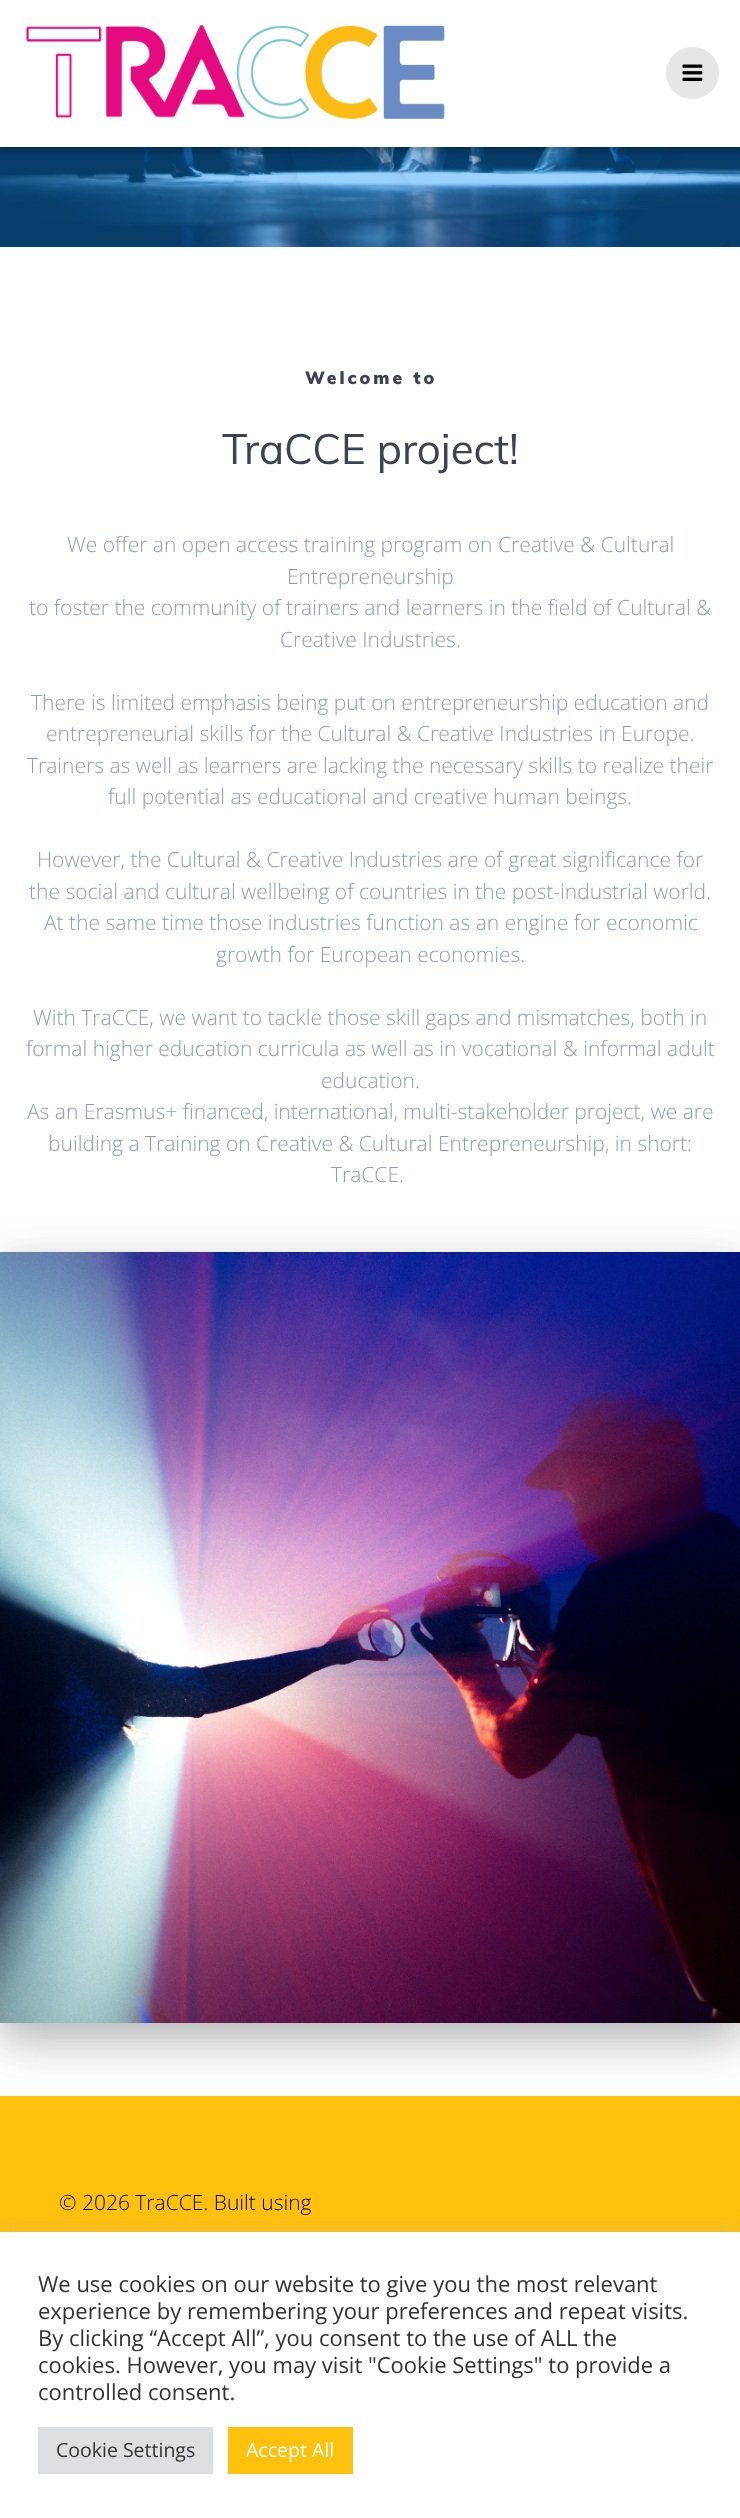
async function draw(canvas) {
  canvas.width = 740;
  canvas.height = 2518;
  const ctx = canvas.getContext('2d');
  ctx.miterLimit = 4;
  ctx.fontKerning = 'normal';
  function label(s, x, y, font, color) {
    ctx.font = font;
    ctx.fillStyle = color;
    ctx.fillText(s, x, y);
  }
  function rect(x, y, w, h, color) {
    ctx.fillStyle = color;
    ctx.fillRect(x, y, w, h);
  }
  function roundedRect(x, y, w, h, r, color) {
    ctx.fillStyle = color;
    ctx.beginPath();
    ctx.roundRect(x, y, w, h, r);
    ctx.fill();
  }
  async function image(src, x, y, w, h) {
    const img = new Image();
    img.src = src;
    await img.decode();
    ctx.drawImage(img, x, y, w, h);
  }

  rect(0, 0, 740, 2518, '#fff');
  await image('assets/img3.png', 0, 147, 740, 100);
  await image('assets/img4.png', 198, 147, 531, 100);
  ctx.fillStyle = '#00000054';
  ctx.filter = 'blur(4px)';
  ctx.beginPath();
  ctx.rect(-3, -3, 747, 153);
  ctx.fill();
  ctx.filter = 'none';
  rect(0, 0, 740, 147, '#fff');
  await image('assets/img1.png', 26, 25, 419, 95);
  roundedRect(666, 47, 53, 52, 26, '#e6e6e6');
  await image('assets/img2.png', 682, 64, 21, 17);
  ctx.letterSpacing = '3px';
  label('Welcome to', 305, 384, '900 17.5px Muli', '#3c424f');
  ctx.letterSpacing = '0px';
  label('TraCCE project!', 222, 464, '42px Muli', '#3c424f');
  label('We offer an open access training program on Creative & Cultural', 67, 552, '300 21px Open Sans', '#8e9dae');
  label('Entrepreneurship', 287, 584, '300 21px Open Sans', '#8e9dae');
  label('to foster the community of trainers and learners in the field of Cultural &', 29, 615, '300 21px Open Sans', '#8e9dae');
  label('Creative Industries.', 280, 647, '300 21px Open Sans', '#8e9dae');
  label('There is limited emphasis being put on entrepreneurship education and', 31, 710, '300 21px Open Sans', '#8e9dae');
  label('entrepreneurial skills for the Cultural & Creative Industries in Europe.', 46, 741, '300 21px Open Sans', '#8e9dae');
  label('Trainers as well as learners are lacking the necessary skills to realize their', 27, 773, '300 21px Open Sans', '#8e9dae');
  label('full potential as educational and creative human beings.', 108, 804, '300 21px Open Sans', '#8e9dae');
  label('However, the Cultural & Creative Industries are of great significance for', 37, 867, '300 21px Open Sans', '#8e9dae');
  label('the social and cultural wellbeing of countries in the post-industrial world.', 29, 899, '300 21px Open Sans', '#8e9dae');
  label('At the same time those industries function as an engine for economic', 44, 930, '300 21px Open Sans', '#8e9dae');
  label('growth for European economies.', 216, 962, '300 21px Open Sans', '#8e9dae');
  label('With TraCCE, we want to tackle those skill gaps and mismatches, both in', 33, 1025, '300 21px Open Sans', '#8e9dae');
  label('formal higher education curricula as well as in vocational & informal adult', 26, 1056, '300 21px Open Sans', '#8e9dae');
  label('education.', 321, 1088, '300 21px Open Sans', '#8e9dae');
  label('As an Erasmus+ financed, international, multi-stakeholder project, we are', 27, 1119, '300 21px Open Sans', '#8e9dae');
  label('building a Training on Creative & Cultural Entrepreneurship, in short:', 48, 1151, '300 21px Open Sans', '#8e9dae');
  label('TraCCE.', 331, 1182, '300 21px Open Sans', '#8e9dae');
  rect(0, 2096, 740, 136, '#ffc10e');
  ctx.fillStyle = '#00000014';
  ctx.filter = 'blur(22.5px)';
  ctx.beginPath();
  ctx.rect(0, 1268, 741, 771);
  ctx.fill();
  ctx.filter = 'none';
  ctx.fillStyle = '#3134394d';
  ctx.filter = 'blur(22.5px)';
  ctx.beginPath();
  ctx.rect(0, 1268, 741, 771);
  ctx.fill();
  ctx.filter = 'none';
  await image('assets/img5.png', 0, 1252, 740, 771);
  label('© 2026 TraCCE. Built using', 59, 2210, '300 21px Open Sans', '#000');
  ctx.fillStyle = '#acabab4d';
  ctx.filter = 'blur(7.5px)';
  ctx.beginPath();
  ctx.rect(0, 2231, 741, 286);
  ctx.fill();
  ctx.filter = 'none';
  rect(0, 2232, 740, 286, '#fff');
  label('We use cookies on our website to give you the most relevant', 38, 2292, '22px Open Sans', '#333');
  label('experience by remembering your preferences and repeat visits.', 38, 2319, '22px Open Sans', '#333');
  label('By clicking “Accept All”, you consent to the use of ALL the', 38, 2346, '22px Open Sans', '#333');
  label('cookies. However, you may visit "Cookie Settings" to provide a', 38, 2373, '22px Open Sans', '#333');
  label('controlled consent.', 38, 2400, '22px Open Sans', '#333');
  rect(38, 2427, 175, 47, '#dedfe0');
  label('Cookie Settings', 56, 2457, '19.5px Open Sans', '#333');
  rect(228, 2427, 125, 47, '#fec10e');
  label('Accept All', 246, 2457, '19.5px Open Sans', '#fff');
}

draw(document.querySelector('canvas'));
